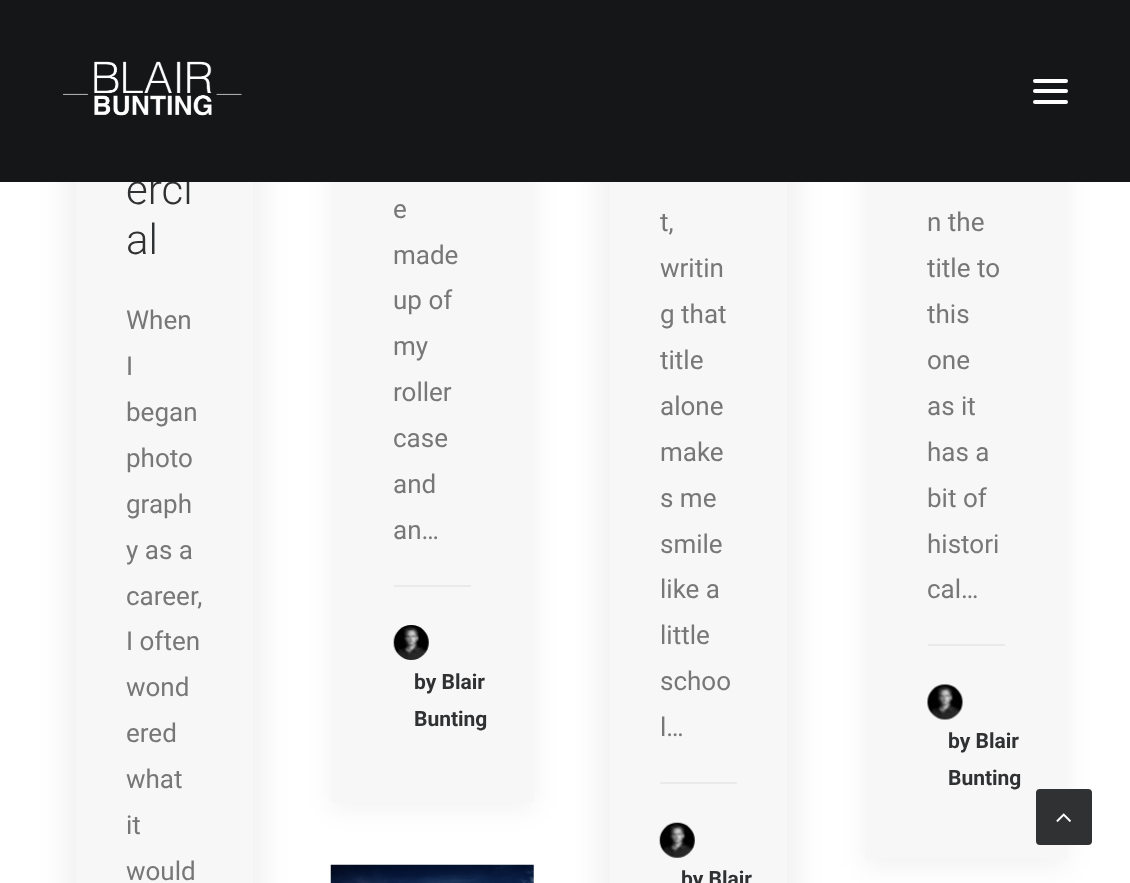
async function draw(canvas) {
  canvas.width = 1130;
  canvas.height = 883;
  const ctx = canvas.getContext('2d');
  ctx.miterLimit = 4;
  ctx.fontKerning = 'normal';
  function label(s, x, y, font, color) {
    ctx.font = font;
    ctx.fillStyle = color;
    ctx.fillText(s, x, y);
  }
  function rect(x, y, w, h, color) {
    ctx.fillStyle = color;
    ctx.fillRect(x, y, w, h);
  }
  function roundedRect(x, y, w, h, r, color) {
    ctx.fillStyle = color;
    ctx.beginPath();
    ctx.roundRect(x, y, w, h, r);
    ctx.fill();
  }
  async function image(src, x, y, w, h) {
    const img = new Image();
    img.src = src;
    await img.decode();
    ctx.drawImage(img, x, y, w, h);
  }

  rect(0, 0, 1130, 883, '#fff');
  ctx.fillStyle = '#0000000d';
  ctx.filter = 'blur(13px)';
  ctx.beginPath();
  ctx.rect(63, -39, 203, 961);
  ctx.fill();
  ctx.filter = 'none';
  rect(76, 182, 177, 701, '#f7f7f7');
  label('erci', 126, 204, '300 42px Roboto', '#303133');
  ctx.fillStyle = '#0000000d';
  ctx.filter = 'blur(13px)';
  ctx.beginPath();
  ctx.rect(331, -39, 203, 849);
  ctx.fill();
  ctx.filter = 'none';
  ctx.filter = 'blur(13px)';
  ctx.beginPath();
  ctx.rect(597, -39, 203, 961);
  ctx.fill();
  ctx.filter = 'none';
  ctx.filter = 'blur(13px)';
  ctx.beginPath();
  ctx.rect(865, -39, 203, 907);
  ctx.fill();
  ctx.filter = 'none';
  rect(0, 0, 1130, 182, '#141618');
  await image('assets/img1.png', 63, 61, 179, 55);
  roundedRect(1033, 89, 35, 4, 2, '#fff');
  roundedRect(1033, 79, 35, 4, 2, '#fff');
  roundedRect(1033, 100, 35, 4, 2, '#fff');
  label('al', 126, 254, '300 42px Roboto', '#303133');
  label('When', 126, 329, '26px Roboto', '#777');
  label('I', 126, 375, '26px Roboto', '#777');
  label('began', 126, 421, '26px Roboto', '#777');
  label('photo', 126, 467, '26px Roboto', '#777');
  label('graph', 126, 513, '26px Roboto', '#777');
  label('y as a', 126, 559, '26px Roboto', '#777');
  label('career,', 126, 605, '26px Roboto', '#777');
  label('I often', 126, 650, '26px Roboto', '#777');
  label('wond', 126, 696, '26px Roboto', '#777');
  label('ered', 126, 742, '26px Roboto', '#777');
  label('what', 126, 788, '26px Roboto', '#777');
  label('it', 126, 834, '26px Roboto', '#777');
  label('would', 126, 880, '26px Roboto', '#777');
  rect(331, 182, 203, 620, '#f7f7f7');
  label('e', 393, 218, '26px Roboto', '#777');
  label('made', 393, 264, '26px Roboto', '#777');
  label('up of', 393, 309, '26px Roboto', '#777');
  label('my', 393, 355, '26px Roboto', '#777');
  label('roller', 393, 401, '26px Roboto', '#777');
  label('case', 393, 447, '26px Roboto', '#777');
  label('and', 393, 493, '26px Roboto', '#777');
  label('an…', 393, 539, '26px Roboto', '#777');
  rect(394, 585, 77, 2, '#eaeaea');
  await image('assets/img2.png', 393, 625, 36, 35);
  label('by Blair', 414, 689, 'bold 21px Roboto', '#303133');
  label('Bunting', 414, 726, 'bold 21px Roboto', '#303133');
  rect(610, 182, 177, 701, '#f7f7f7');
  label('t,', 660, 231, '26px Roboto', '#777');
  label('writin', 660, 277, '26px Roboto', '#777');
  label('g that', 660, 323, '26px Roboto', '#777');
  label('title', 660, 369, '26px Roboto', '#777');
  label('alone', 660, 415, '26px Roboto', '#777');
  label('make', 660, 461, '26px Roboto', '#777');
  label('s me', 660, 507, '26px Roboto', '#777');
  label('smile', 660, 553, '26px Roboto', '#777');
  label('like a', 660, 598, '26px Roboto', '#777');
  label('little', 660, 644, '26px Roboto', '#777');
  label('schoo', 660, 690, '26px Roboto', '#777');
  label('l…', 660, 736, '26px Roboto', '#777');
  rect(660, 782, 77, 2, '#eaeaea');
  await image('assets/img3.png', 659, 822, 36, 36);
  label('by Blair', 681, 886, 'bold 21px Roboto', '#303133');
  rect(865, 182, 203, 677, '#f7f7f7');
  label('n the', 927, 231, '26px Roboto', '#777');
  label('title to', 927, 277, '26px Roboto', '#777');
  label('this', 927, 323, '26px Roboto', '#777');
  label('one', 927, 369, '26px Roboto', '#777');
  label('as it', 927, 415, '26px Roboto', '#777');
  label('has a', 927, 461, '26px Roboto', '#777');
  label('bit of', 927, 507, '26px Roboto', '#777');
  label('histori', 927, 553, '26px Roboto', '#777');
  label('cal…', 927, 598, '26px Roboto', '#777');
  rect(928, 644, 77, 2, '#eaeaea');
  await image('assets/img4.png', 927, 684, 36, 36);
  label('by Blair', 948, 748, 'bold 21px Roboto', '#303133');
  label('Bunting', 948, 785, 'bold 21px Roboto', '#303133');
  await image('assets/img5.png', 330, 864, 204, 19);
  ctx.beginPath();
  ctx.roundRect(1037, 790, 54, 54, 3);
  ctx.fill();
  ctx.strokeStyle = '#303133';
  ctx.lineWidth = 2;
  ctx.stroke();
  await image('assets/img6.png', 1056, 813, 15, 9);
}

draw(document.querySelector('canvas'));
